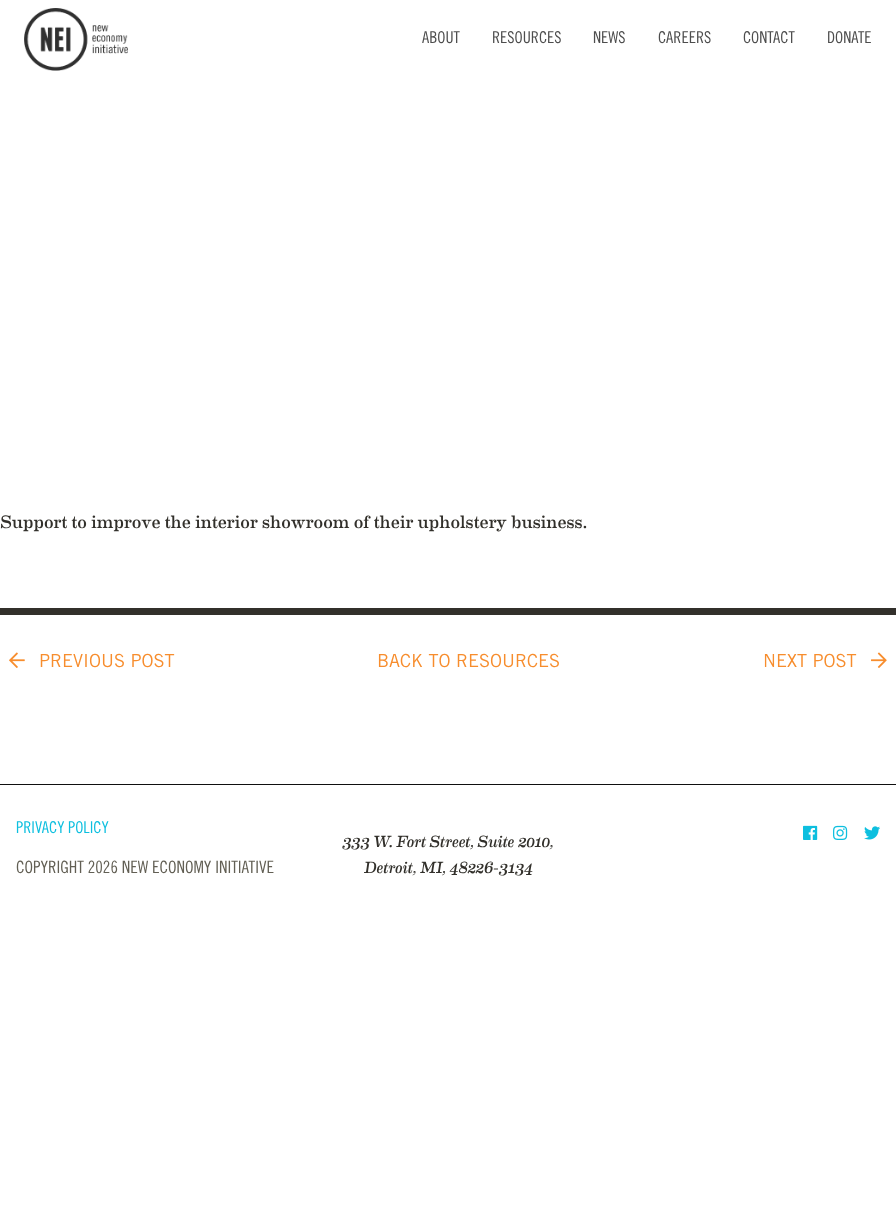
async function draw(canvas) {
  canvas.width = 896;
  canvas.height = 1231;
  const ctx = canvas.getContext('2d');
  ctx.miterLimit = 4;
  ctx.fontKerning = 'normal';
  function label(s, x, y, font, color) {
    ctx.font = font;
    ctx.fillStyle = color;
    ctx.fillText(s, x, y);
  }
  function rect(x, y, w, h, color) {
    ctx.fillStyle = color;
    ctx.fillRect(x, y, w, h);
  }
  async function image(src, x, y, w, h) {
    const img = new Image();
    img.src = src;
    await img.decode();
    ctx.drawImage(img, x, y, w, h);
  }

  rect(0, 0, 896, 1231, '#fff');
  await image('assets/img1.png', 24, 8, 104, 63);
  label('ABOUT', 422, 43, '16.25px Trade Gothic', '#4d4d4d');
  label('RESOURCES', 492, 43, '16.25px Trade Gothic', '#4d4d4d');
  label('NEWS', 593, 43, '16.25px Trade Gothic', '#4d4d4d');
  label('CAREERS', 658, 43, '16.25px Trade Gothic', '#4d4d4d');
  label('CONTACT', 743, 43, '16.25px Trade Gothic', '#4d4d4d');
  label('DONATE', 827, 43, '16.25px Trade Gothic', '#4d4d4d');
  label('Support to improve the interior showroom of their upholstery business.', 0, 528, '18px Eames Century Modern', '#32302b');
  rect(0, 608, 896, 7, '#32302b');
  await image('assets/img2.png', 9, 652, 16, 16);
  label('PREVIOUS POST', 39, 667, '18px "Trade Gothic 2"', '#f78d2d');
  label('BACK TO RESOURCES', 377, 667, '18px "Trade Gothic 2"', '#f78d2d');
  label('NEXT POST', 763, 667, '18px "Trade Gothic 2"', '#f78d2d');
  await image('assets/img3.png', 871, 652, 16, 16);
  rect(0, 784, 896, 1, '#0f0f0f');
  label('PRIVACY POLICY', 16, 833, '16.25px Trade Gothic', '#0dbfdf');
  label('COPYRIGHT 2026 NEW ECONOMY INITIATIVE', 16, 873, '17px Trade Gothic', '#625f54');
  await image('assets/img4.png', 803, 825, 15, 15);
  await image('assets/img5.png', 833, 825, 15, 15);
  await image('assets/img6.png', 864, 826, 16, 14);
  label('333 W. Fort Street, Suite 2010,', 342, 847, 'italic 16.25px Eames Century Modern', '#32302b');
  label('Detroit, MI, 48226-3134', 364, 873, 'italic 16.25px Eames Century Modern', '#32302b');
}

draw(document.querySelector('canvas'));
